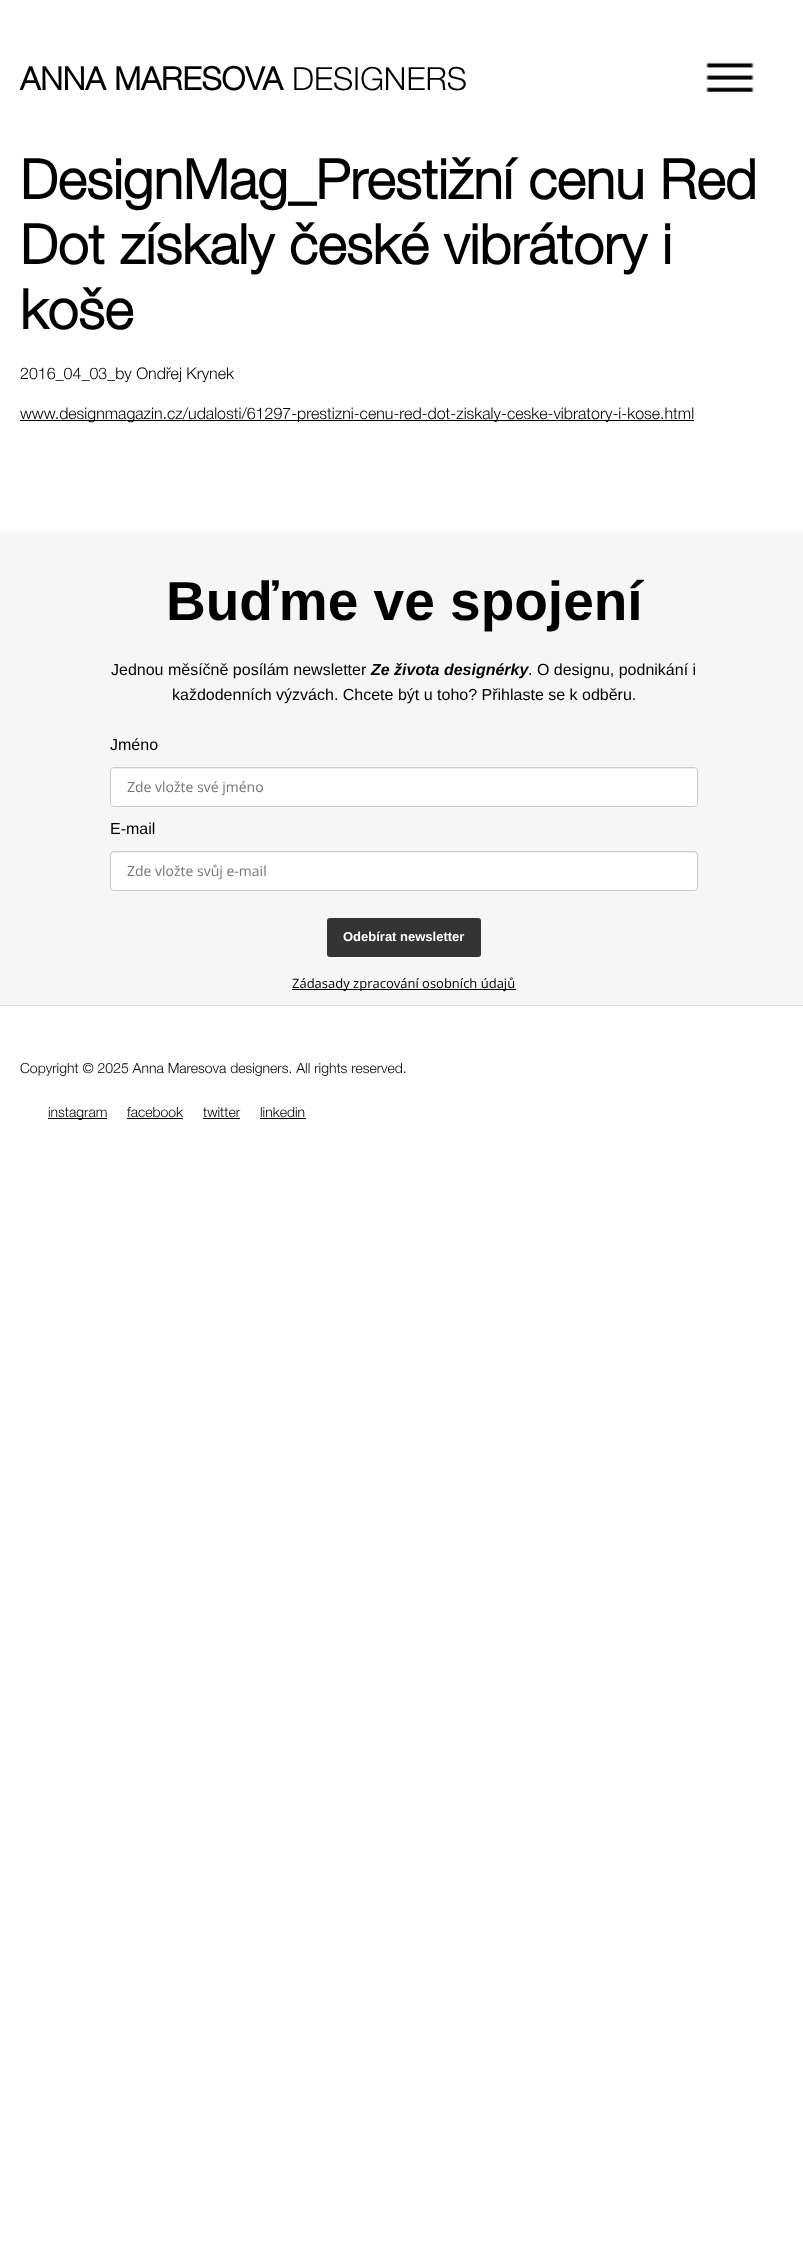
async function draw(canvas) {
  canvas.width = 803;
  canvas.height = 2257;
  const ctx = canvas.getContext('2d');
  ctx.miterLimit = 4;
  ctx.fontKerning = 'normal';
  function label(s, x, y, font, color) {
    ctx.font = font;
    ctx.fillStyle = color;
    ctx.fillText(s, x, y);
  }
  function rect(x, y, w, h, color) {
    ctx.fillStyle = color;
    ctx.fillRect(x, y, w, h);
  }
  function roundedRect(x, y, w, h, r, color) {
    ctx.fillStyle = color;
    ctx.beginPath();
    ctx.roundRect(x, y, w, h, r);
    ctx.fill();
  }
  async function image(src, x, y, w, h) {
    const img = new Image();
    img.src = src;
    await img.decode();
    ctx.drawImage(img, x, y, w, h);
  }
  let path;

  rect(0, 0, 803, 2257, '#fff');
  label('ANNA MARESOVA', 20, 90, 'bold 32px "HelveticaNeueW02"', '#000');
  label('DESIGNERS', 292, 90, '300 32px "HelveticaNeueW02"', '#000');
  await image('assets/img1.png', 705, 62, 50, 32);
  label('DesignMag_Prestižní cenu Red', 20, 199, 'bold 55px "HelveticaNeueW02"', '#000');
  label('Dot získaly české vibrátory i', 20, 264, 'bold 55px "HelveticaNeueW02"', '#000');
  label('koše', 20, 329, 'bold 55px "HelveticaNeueW02"', '#000');
  label('2016_04_03_by Ondřej Krynek', 20, 379, '300 16px "HelveticaNeueW02"', '#000');
  rect(20, 420, 674, 1, '#000');
  label('www.designmagazin.cz/udalosti/61297-prestizni-cenu-red-dot-ziskaly-ceske-vibratory-i-kose.html', 20, 419, '300 16px "HelveticaNeueW02"', '#000');
  rect(0, 531, 803, 474, '#f6f6f6');
  label('Buďme ve spojení', 166, 620, 'bold 55px Liberation Sans', '#000');
  label('Jednou měsíčně posílám newsletter', 111, 675, '16px Liberation Sans', '#000');
  label('Ze života designérky', 371, 675, 'italic bold 16px Liberation Sans', '#000');
  label('. O designu, podnikání i', 528, 675, '16px Liberation Sans', '#000');
  label('každodenních výzvách. Chcete být u toho? Přihlaste se k odběru.', 172, 700, '16px Liberation Sans', '#000');
  label('Jméno', 110, 750, '16px Liberation Sans', '#000');
  roundedRect(110, 767, 588, 40, 4, '#fff');
  ctx.fillStyle = '#ececec';
  path = new Path2D('M114 769H694C696 769 697 770 697 772V771C697 769 696 768 694 768H114C112 768 111 769 111 771V772C111 770 112 769 114 769Z');
  ctx.fill(path);
  ctx.beginPath();
  ctx.roundRect(110.5, 767.5, 587, 39, 3.5);
  ctx.strokeStyle = '#ccc';
  ctx.stroke();
  label('Zde vložte své jméno', 127, 792, '14px Open Sans', '#757575');
  label('E-mail', 110, 834, '16px Liberation Sans', '#000');
  roundedRect(110, 851, 588, 40, 4, '#fff');
  ctx.fillStyle = '#ececec';
  path = new Path2D('M114 853H694C696 853 697 854 697 856V855C697 853 696 852 694 852H114C112 852 111 853 111 855V856C111 854 112 853 114 853Z');
  ctx.fill(path);
  ctx.beginPath();
  ctx.roundRect(110.5, 851.5, 587, 39, 3.5);
  ctx.stroke();
  label('Zde vložte svůj e-mail', 127, 876, '14px Open Sans', '#757575');
  roundedRect(327, 918, 154, 39, 3, '#343434');
  label('Odebírat newsletter', 343, 941, 'bold 13px Liberation Sans', '#fff');
  rect(292, 989, 224, 1, '#000');
  label('Zádasady zpracování osobních údajů', 292, 988, '13px Open Sans', '#000');
  rect(0, 1005, 803, 1, '#e1e1e1');
  label('Copyright © 2025 Anna Maresova designers. All rights reserved.', 20, 1073, '300 14px "HelveticaNeueW02"', '#000');
  rect(48, 1118, 59, 1, '#000');
  label('instagram', 48, 1117, '300 14px "HelveticaNeueW02"', '#000');
  label('facebook', 127, 1117, '300 14px "HelveticaNeueW02"', '#000');
  rect(127, 1118, 56, 1, '#000');
  label('twitter', 203, 1117, '300 14px "HelveticaNeueW02"', '#000');
  rect(203, 1118, 37, 1, '#000');
  label('linkedin', 260, 1117, '300 14px "HelveticaNeueW02"', '#000');
  rect(260, 1118, 46, 1, '#000');
}

draw(document.querySelector('canvas'));
